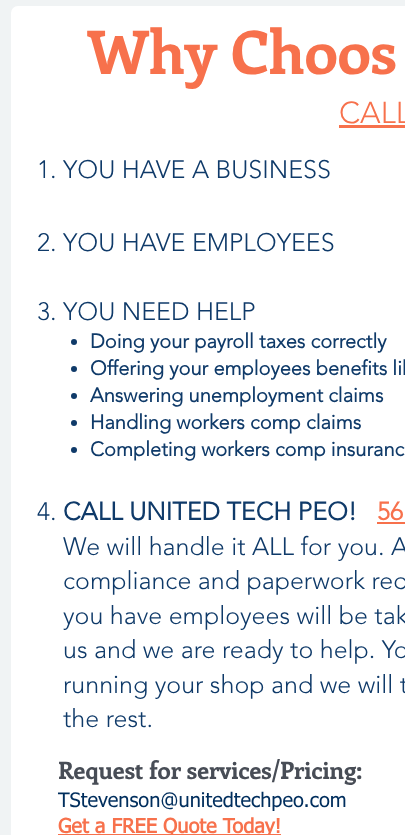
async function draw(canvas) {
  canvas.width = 405;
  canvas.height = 835;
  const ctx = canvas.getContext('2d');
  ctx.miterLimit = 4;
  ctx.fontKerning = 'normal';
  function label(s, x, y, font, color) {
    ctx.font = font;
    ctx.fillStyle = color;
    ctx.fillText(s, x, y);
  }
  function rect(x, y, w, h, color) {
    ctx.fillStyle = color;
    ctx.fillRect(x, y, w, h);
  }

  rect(0, 0, 405, 835, '#f0f3f4');
  ctx.fillStyle = '#fff';
  ctx.beginPath();
  ctx.roundRect(15.5, 10.5, 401, 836, 2.5);
  ctx.fill();
  ctx.strokeStyle = '#fff';
  ctx.lineWidth = 9;
  ctx.stroke();
  label('Why Choos', 87, 74, 'bold 60px Enriqueta', '#f7714c');
  label('CALL', 339, 123, '300 30px "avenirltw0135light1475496"', '#f7714c');
  rect(339, 125, 66, 3, '#f7714c');
  label('1. YOU HAVE A BUSINESS', 37, 178, '300 25px "avenirltw0135light1475496"', '#0f3a69');
  label('2. YOU HAVE EMPLOYEES', 37, 251, '300 25px "avenirltw0135light1475496"', '#0f3a69');
  label('3. YOU NEED HELP', 37, 320, '300 25px "avenirltw0135light1475496"', '#0f3a69');
  label('4.', 37, 520, '300 25px "avenirltw0135light1475496"', '#0f3a69');
  label('CALL UNITED TECH PEO!', 63, 520, 'bold 25px "avenirltw0135light1475496"', '#0f3a69');
  label('56', 377, 520, 'bold 25px "avenirltw0135light1475496"', '#f7714c');
  rect(377, 522, 28, 2, '#f7714c');
  label('We will handle it ALL for you. A', 63, 555, '300 25px "avenirltw0135light1475496"', '#0f3a69');
  label('compliance and paperwork req', 63, 589, '300 25px "avenirltw0135light1475496"', '#0f3a69');
  label('you have employees will be tak', 63, 624, '300 25px "avenirltw0135light1475496"', '#0f3a69');
  label('us and we are ready to help. Yo', 63, 658, '300 25px "avenirltw0135light1475496"', '#0f3a69');
  label('running your shop and we will t', 63, 693, '300 25px "avenirltw0135light1475496"', '#0f3a69');
  label('the rest.', 63, 727, '300 25px "avenirltw0135light1475496"', '#0f3a69');
  label('Request for services/Pricing:', 58, 779, 'bold 24px Enriqueta', '#484d56');
  label('TStevenson@unitedtechpeo.com', 58, 807, '20px tahoma', '#002e5d');
  rect(58, 834, 223, 1, '#f7714c');
  label('Get a FREE Quote Today!', 58, 833, 'bold 20px tahoma', '#f7714c');
  ctx.fillStyle = '#0f3a69';
  ctx.beginPath();
  ctx.arc(74, 342, 3, 0, 2 * Math.PI);
  ctx.fill();
  label('Doing your payroll taxes correctly', 90, 348, 'bold 20px "avenirltw0135light1475496"', '#0f3a69');
  ctx.beginPath();
  ctx.arc(74, 369, 3, 0, 2 * Math.PI);
  ctx.fill();
  label('Offering your employees benefits lik', 90, 375, 'bold 20px "avenirltw0135light1475496"', '#0f3a69');
  ctx.beginPath();
  ctx.arc(74, 396, 3, 0, 2 * Math.PI);
  ctx.fill();
  label('Answering unemployment claims', 90, 402, 'bold 20px "avenirltw0135light1475496"', '#0f3a69');
  ctx.beginPath();
  ctx.arc(74, 423, 3, 0, 2 * Math.PI);
  ctx.fill();
  label('Handling workers comp claims', 90, 429, 'bold 20px "avenirltw0135light1475496"', '#0f3a69');
  ctx.beginPath();
  ctx.arc(74, 450, 3, 0, 2 * Math.PI);
  ctx.fill();
  label('Completing workers comp insuranc', 90, 456, 'bold 20px "avenirltw0135light1475496"', '#0f3a69');
}

draw(document.querySelector('canvas'));
